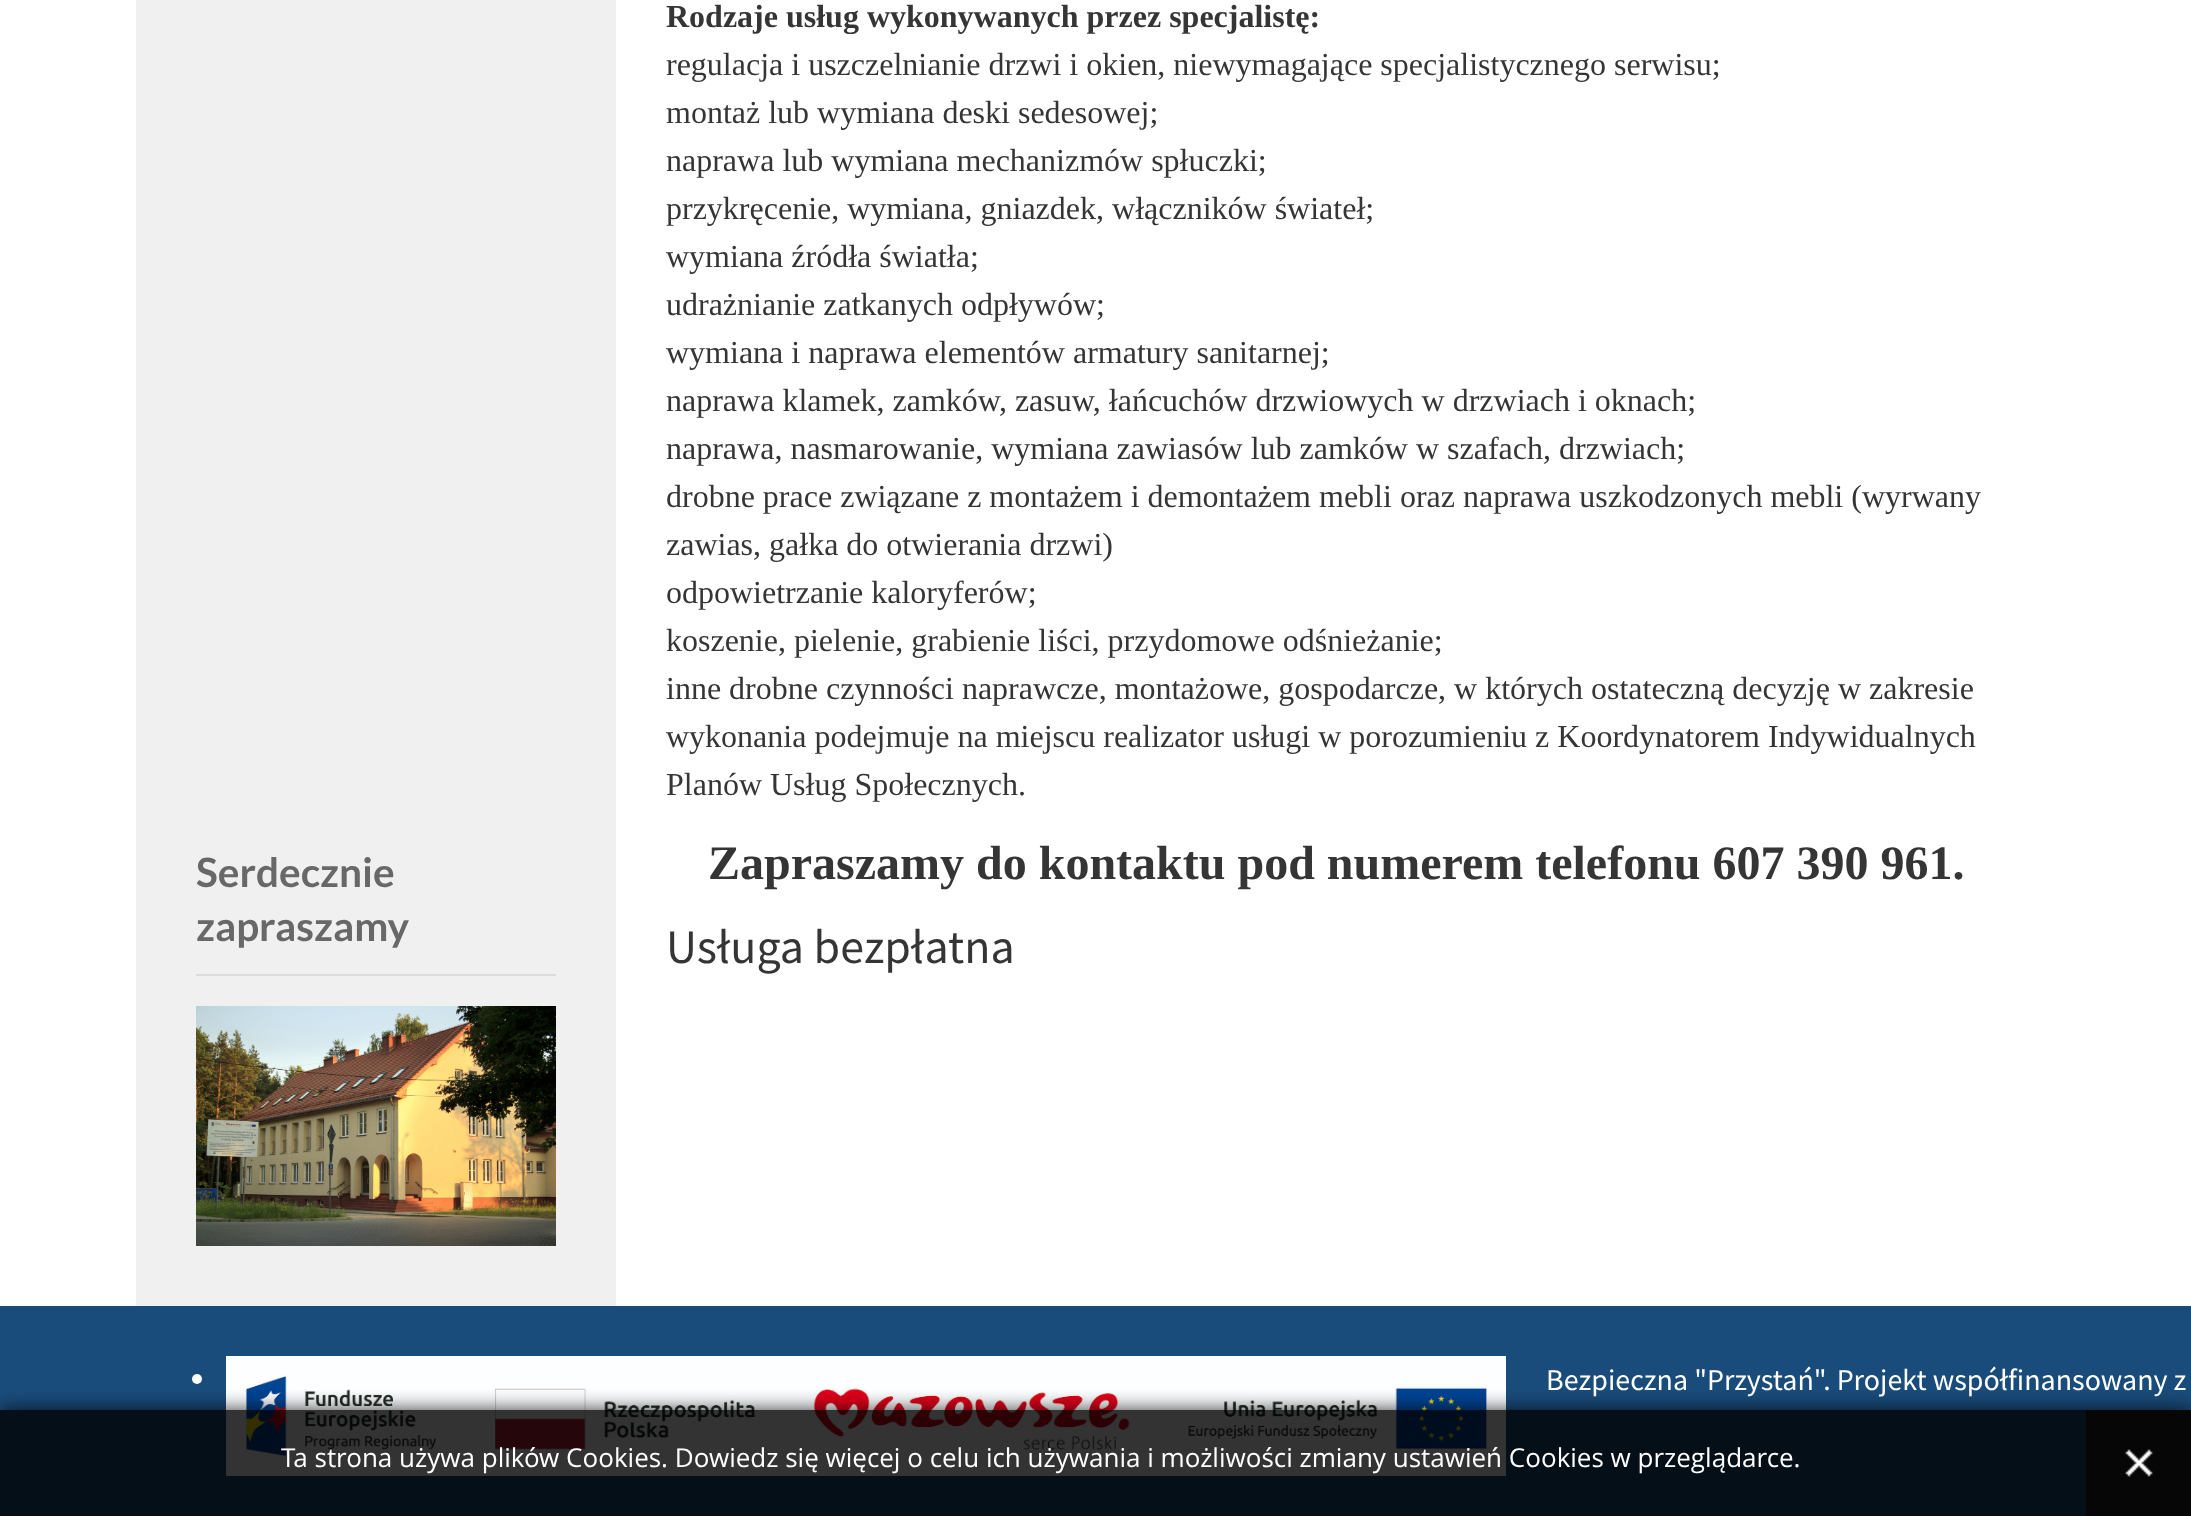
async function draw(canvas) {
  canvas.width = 2191;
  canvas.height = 1516;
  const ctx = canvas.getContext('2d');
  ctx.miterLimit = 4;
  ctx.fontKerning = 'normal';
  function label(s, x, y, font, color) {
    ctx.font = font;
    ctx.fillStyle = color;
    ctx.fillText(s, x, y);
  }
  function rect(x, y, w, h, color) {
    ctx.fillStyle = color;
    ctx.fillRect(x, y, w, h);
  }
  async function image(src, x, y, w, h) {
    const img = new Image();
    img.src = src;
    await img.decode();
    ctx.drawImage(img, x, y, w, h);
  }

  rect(0, 0, 2191, 1516, '#fff');
  rect(136, 0, 480, 1306, '#f0f0f0');
  rect(196, 974, 360, 2, '#dcdcdc');
  label('Serdecznie', 196, 887, 'bold 40.5px Lato', '#686868');
  label('zapraszamy', 196, 941, 'bold 40.5px Lato', '#686868');
  await image('assets/img1.png', 196, 1006, 360, 240);
  label('Rodzaje usług wykonywanych przez specjalistę:', 666, 27, 'bold 32px Liberation Serif', '#353535');
  label('regulacja i uszczelnianie drzwi i okien, niewymagające specjalistycznego serwisu;', 666, 75, '32px Liberation Serif', '#353535');
  label('montaż lub wymiana deski sedesowej;', 666, 123, '32px Liberation Serif', '#353535');
  label('naprawa lub wymiana mechanizmów spłuczki;', 666, 171, '32px Liberation Serif', '#353535');
  label('przykręcenie, wymiana, gniazdek, włączników świateł;', 666, 219, '32px Liberation Serif', '#353535');
  label('wymiana źródła światła;', 666, 267, '32px Liberation Serif', '#353535');
  label('udrażnianie zatkanych odpływów;', 666, 315, '32px Liberation Serif', '#353535');
  label('wymiana i naprawa elementów armatury sanitarnej;', 666, 363, '32px Liberation Serif', '#353535');
  label('naprawa klamek, zamków, zasuw, łańcuchów drzwiowych w drzwiach i oknach;', 666, 411, '32px Liberation Serif', '#353535');
  label('naprawa, nasmarowanie, wymiana zawiasów lub zamków w szafach, drzwiach;', 666, 459, '32px Liberation Serif', '#353535');
  label('drobne prace związane z montażem i demontażem mebli oraz naprawa uszkodzonych mebli (wyrwany', 666, 507, '32px Liberation Serif', '#353535');
  label('zawias, gałka do otwierania drzwi)', 666, 555, '32px Liberation Serif', '#353535');
  label('odpowietrzanie kaloryferów;', 666, 603, '32px Liberation Serif', '#353535');
  label('koszenie, pielenie, grabienie liści, przydomowe odśnieżanie;', 666, 651, '32px Liberation Serif', '#353535');
  label('inne drobne czynności naprawcze, montażowe, gospodarcze, w których ostateczną decyzję w zakresie', 666, 699, '32px Liberation Serif', '#353535');
  label('wykonania podejmuje na miejscu realizator usługi w porozumieniu z Koordynatorem Indywidualnych', 666, 747, '32px Liberation Serif', '#353535');
  label('Planów Usług Społecznych.', 666, 795, '32px Liberation Serif', '#353535');
  label('Zapraszamy do kontaktu pod numerem telefonu 607 390 961.', 708, 879, 'bold 48px Liberation Serif', '#353535');
  label('Usługa bezpłatna', 666, 963, '48px Source Sans Pro', '#353535');
  rect(0, 1306, 2191, 210, '#1a4c7b');
  ctx.fillStyle = '#fff';
  ctx.beginPath();
  ctx.arc(197, 1379, 5, 0, 2 * Math.PI);
  ctx.fill();
  await image('assets/img2.png', 226, 1356, 1280, 120);
  label('Bezpieczna "Przystań". Projekt współfinansowany z', 1546, 1390, '30px Source Sans Pro', '#fff');
  ctx.save();
  ctx.beginPath();
  ctx.rect(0, 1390, 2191, 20);
  ctx.clip();
  ctx.fillStyle = '#000000cc';
  ctx.filter = 'blur(10px)';
  ctx.beginPath();
  ctx.rect(0, 1410, 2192, 106);
  ctx.fill();
  ctx.filter = 'none';
  ctx.restore();
  rect(0, 1410, 2086, 106, '#000000cc');
  label('Ta strona używa plików Cookies. Dowiedz się więcej o celu ich używania i możliwości zmiany ustawień Cookies w przeglądarce.', 281, 1467, '26px Open Sans', '#fff');
  rect(2086, 1410, 105, 106, '#060606');
  await image('assets/img3.png', 2125, 1449, 28, 28);
}

draw(document.querySelector('canvas'));
